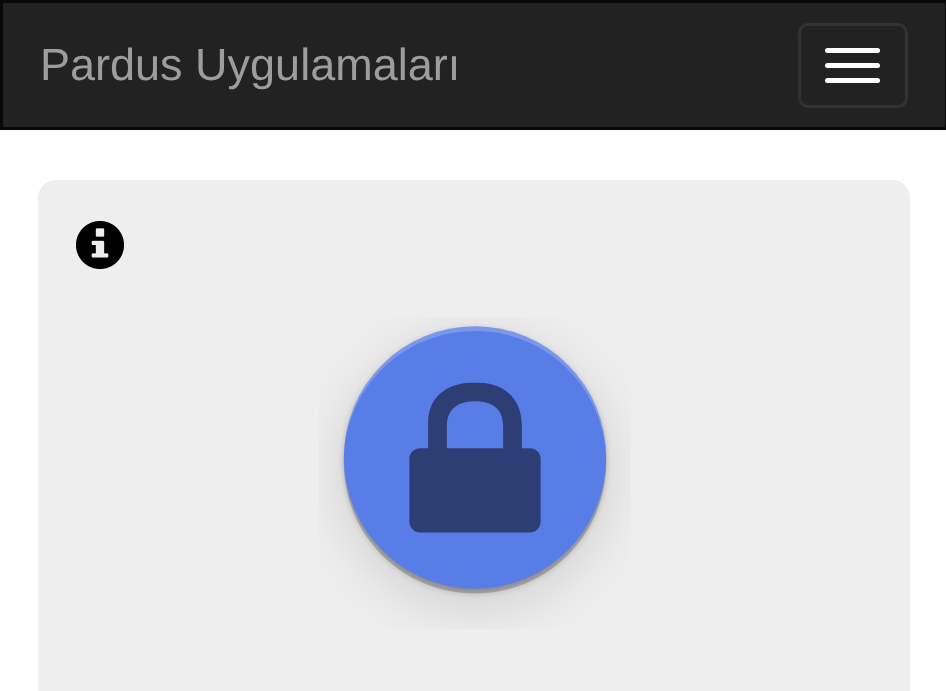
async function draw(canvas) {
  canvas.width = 946;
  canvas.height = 691;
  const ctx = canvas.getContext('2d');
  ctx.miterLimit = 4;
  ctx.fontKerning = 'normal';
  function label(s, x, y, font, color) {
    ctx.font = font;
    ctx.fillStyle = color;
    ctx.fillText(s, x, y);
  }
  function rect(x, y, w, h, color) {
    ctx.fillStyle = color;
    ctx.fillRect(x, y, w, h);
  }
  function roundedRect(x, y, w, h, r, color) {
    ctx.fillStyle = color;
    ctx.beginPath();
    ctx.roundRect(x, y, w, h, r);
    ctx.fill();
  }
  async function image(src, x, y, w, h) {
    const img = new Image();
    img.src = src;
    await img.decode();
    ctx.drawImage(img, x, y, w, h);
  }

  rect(0, 0, 946, 691, '#fff');
  ctx.fillStyle = '#222';
  ctx.beginPath();
  ctx.rect(1.5, 1.5, 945, 127);
  ctx.fill();
  ctx.strokeStyle = '#080808';
  ctx.lineWidth = 3;
  ctx.stroke();
  label('Pardus Uygulamaları', 40, 80, '45px Liberation Sans', '#9d9d9d');
  ctx.beginPath();
  ctx.roundRect(799.5, 24.5, 107, 82, 8.5);
  ctx.strokeStyle = '#333';
  ctx.stroke();
  roundedRect(825, 48, 55, 5, 2.5, '#fff');
  roundedRect(825, 63, 55, 5, 2.5, '#fff');
  roundedRect(825, 78, 55, 5, 2.5, '#fff');
  ctx.fillStyle = '#eee';
  ctx.beginPath();
  ctx.roundRect(38, 180, 872, 90, [18, 18, 0, 0]);
  ctx.fill();
  await image('assets/img1.png', 76, 221, 48, 48);
  rect(38, 270, 872, 421, '#eee');
  await image('assets/img2.png', 319, 317, 312, 312);
}

draw(document.querySelector('canvas'));
